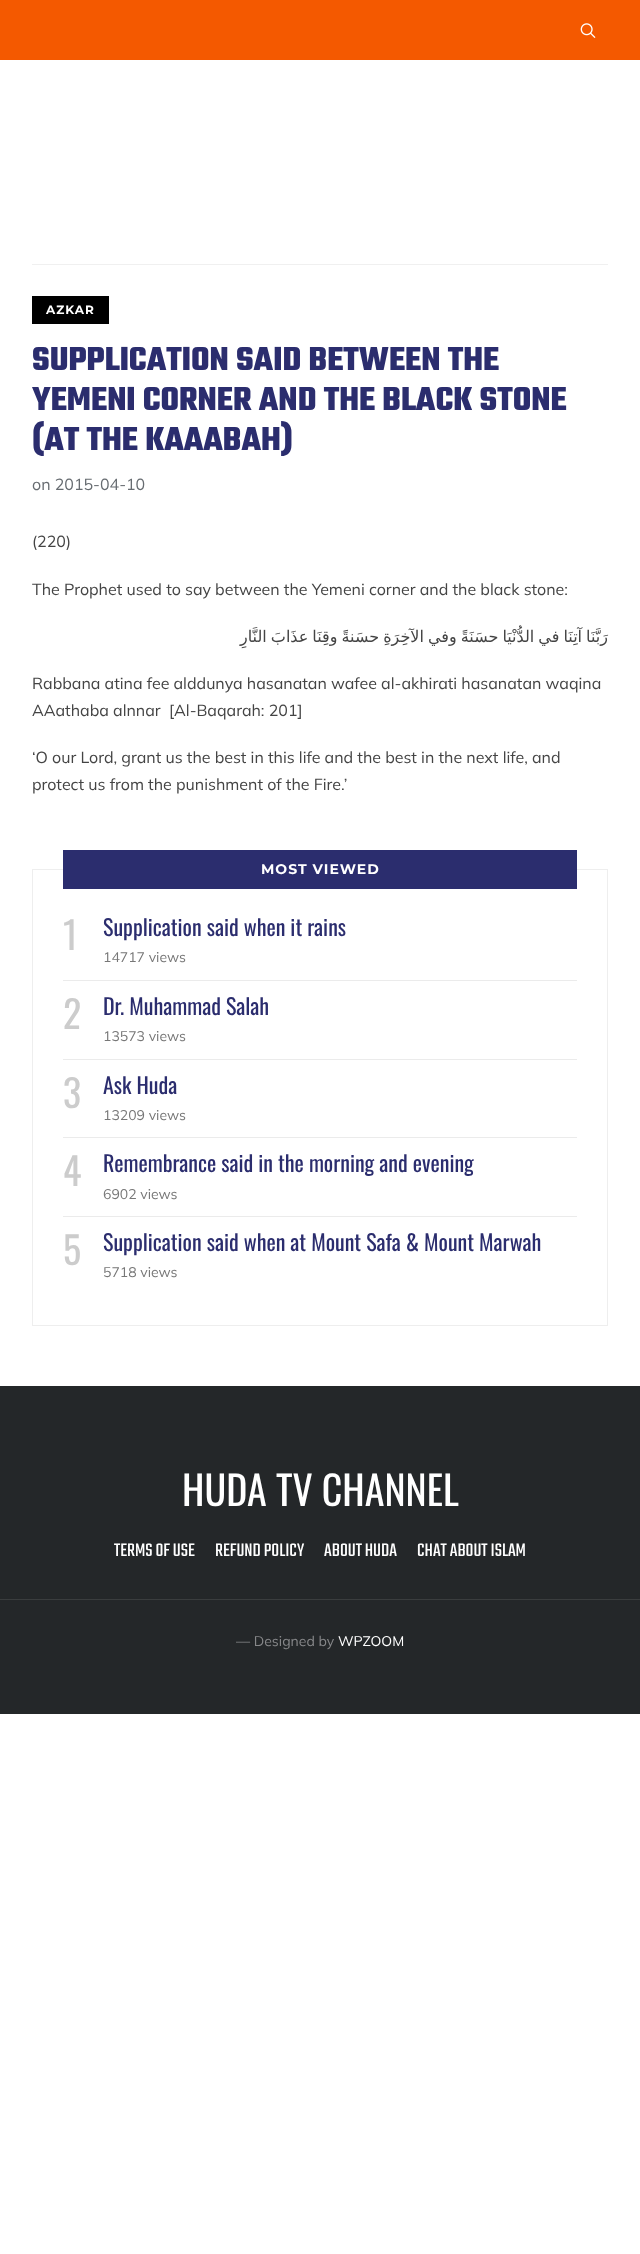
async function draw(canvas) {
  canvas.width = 640;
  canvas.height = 2254;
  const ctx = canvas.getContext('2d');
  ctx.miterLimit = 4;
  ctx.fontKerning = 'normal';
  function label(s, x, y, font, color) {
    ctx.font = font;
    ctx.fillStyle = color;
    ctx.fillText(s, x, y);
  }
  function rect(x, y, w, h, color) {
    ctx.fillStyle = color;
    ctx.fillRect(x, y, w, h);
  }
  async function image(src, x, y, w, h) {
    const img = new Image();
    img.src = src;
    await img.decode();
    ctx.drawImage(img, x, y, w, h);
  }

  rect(0, 0, 640, 2254, '#fff');
  rect(0, 0, 640, 60, '#f45900');
  await image('assets/img1.png', 580, 23, 16, 15);
  rect(32, 264, 576, 1, '#f0f0f0');
  rect(32, 296, 77, 28, '#000');
  ctx.letterSpacing = '1px';
  label('AZKAR', 46, 314, 'bold 12px Montserrat', '#fff');
  ctx.letterSpacing = '0px';
  label('SUPPLICATION SAID BETWEEN THE', 32, 370, 'bold 36px Teko', '#2b2d6e');
  label('YEMENI CORNER AND THE BLACK STONE', 32, 410, 'bold 36px Teko', '#2b2d6e');
  label('(AT THE KAAABAH)', 32, 450, 'bold 36px Teko', '#2b2d6e');
  label('on 2015-04-10', 32, 490, '16px Mulish', '#676c71');
  label('(220)', 32, 547, '16px Mulish', '#444');
  label('The Prophet used to say between the Yemeni corner and the black stone:', 32, 595, '16px Mulish', '#444');
  ctx.wordSpacing = '-1px';
  ctx.direction = 'rtl';
  label('رَبَّنَا آتِنَا في الدُّنْيَا حسَنَةً وفي الآخِرَةِ حسَنةً وقِنَا عذَابَ النَّارِ', 608, 642, '16px DejaVu Sans', '#444');
  ctx.wordSpacing = '0px';
  ctx.direction = 'ltr';
  label('Rabbana atina fee alddunya hasanatan wafee al-akhirati hasanatan waqina', 32, 689, '16px Mulish', '#444');
  label('AAathaba alnnar  [Al-Baqarah: 201]', 32, 716, '16px Mulish', '#444');
  label('‘O our Lord, grant us the best in this life and the best in the next life, and', 32, 763, '16px Mulish', '#444');
  label('protect us from the punishment of the Fire.’', 32, 790, '16px Mulish', '#444');
  ctx.strokeStyle = '#eee';
  ctx.strokeRect(32.5, 869.5, 575, 456);
  rect(63, 850, 514, 39, '#2b2d6e');
  ctx.letterSpacing = '1px';
  label('MOST VIEWED', 261, 874, 'bold 14px Montserrat', '#fff');
  rect(63, 980, 514, 1, '#ebebeb');
  ctx.letterSpacing = '0px';
  label('1', 63, 950, '38px Oswald', '#ccc');
  label('Supplication said when it rains', 103, 936, '22px Oswald', '#2b2d6e');
  label('14717 views', 103, 962, '14px Mulish', '#777');
  rect(63, 1059, 514, 1, '#ebebeb');
  label('2', 63, 1029, '38px Oswald', '#ccc');
  label('Dr. Muhammad Salah', 103, 1015, '22px Oswald', '#2b2d6e');
  label('13573 views', 103, 1041, '14px Mulish', '#777');
  rect(63, 1137, 514, 1, '#ebebeb');
  label('3', 63, 1108, '38px Oswald', '#ccc');
  label('Ask Huda', 103, 1094, '22px Oswald', '#2b2d6e');
  label('13209 views', 103, 1120, '14px Mulish', '#777');
  rect(63, 1216, 514, 1, '#ebebeb');
  label('4', 63, 1186, '38px Oswald', '#ccc');
  label('Remembrance said in the morning and evening', 103, 1172, '22px Oswald', '#2b2d6e');
  label('6902 views', 103, 1199, '14px Mulish', '#777');
  label('5', 63, 1265, '38px Oswald', '#ccc');
  label('Supplication said when at Mount Safa & Mount Marwah', 103, 1251, '22px Oswald', '#2b2d6e');
  label('5718 views', 103, 1277, '14px Mulish', '#777');
  rect(0, 1386, 640, 328, '#242729');
  label('HUDA TV CHANNEL', 182, 1506, '40px Oswald', '#fff');
  label('TERMS OF USE', 114, 1556, '20px Teko', '#fff');
  label('REFUND POLICY', 215, 1556, '20px Teko', '#fff');
  label('ABOUT HUDA', 324, 1556, '20px Teko', '#fff');
  label('CHAT ABOUT ISLAM', 417, 1556, '20px Teko', '#fff');
  rect(0, 1599, 640, 1, '#3a3d3e');
  label('— Designed by', 236, 1646, '14px Mulish', '#87888a');
  label('WPZOOM', 338, 1646, '14px Mulish', '#fff');
}

draw(document.querySelector('canvas'));
